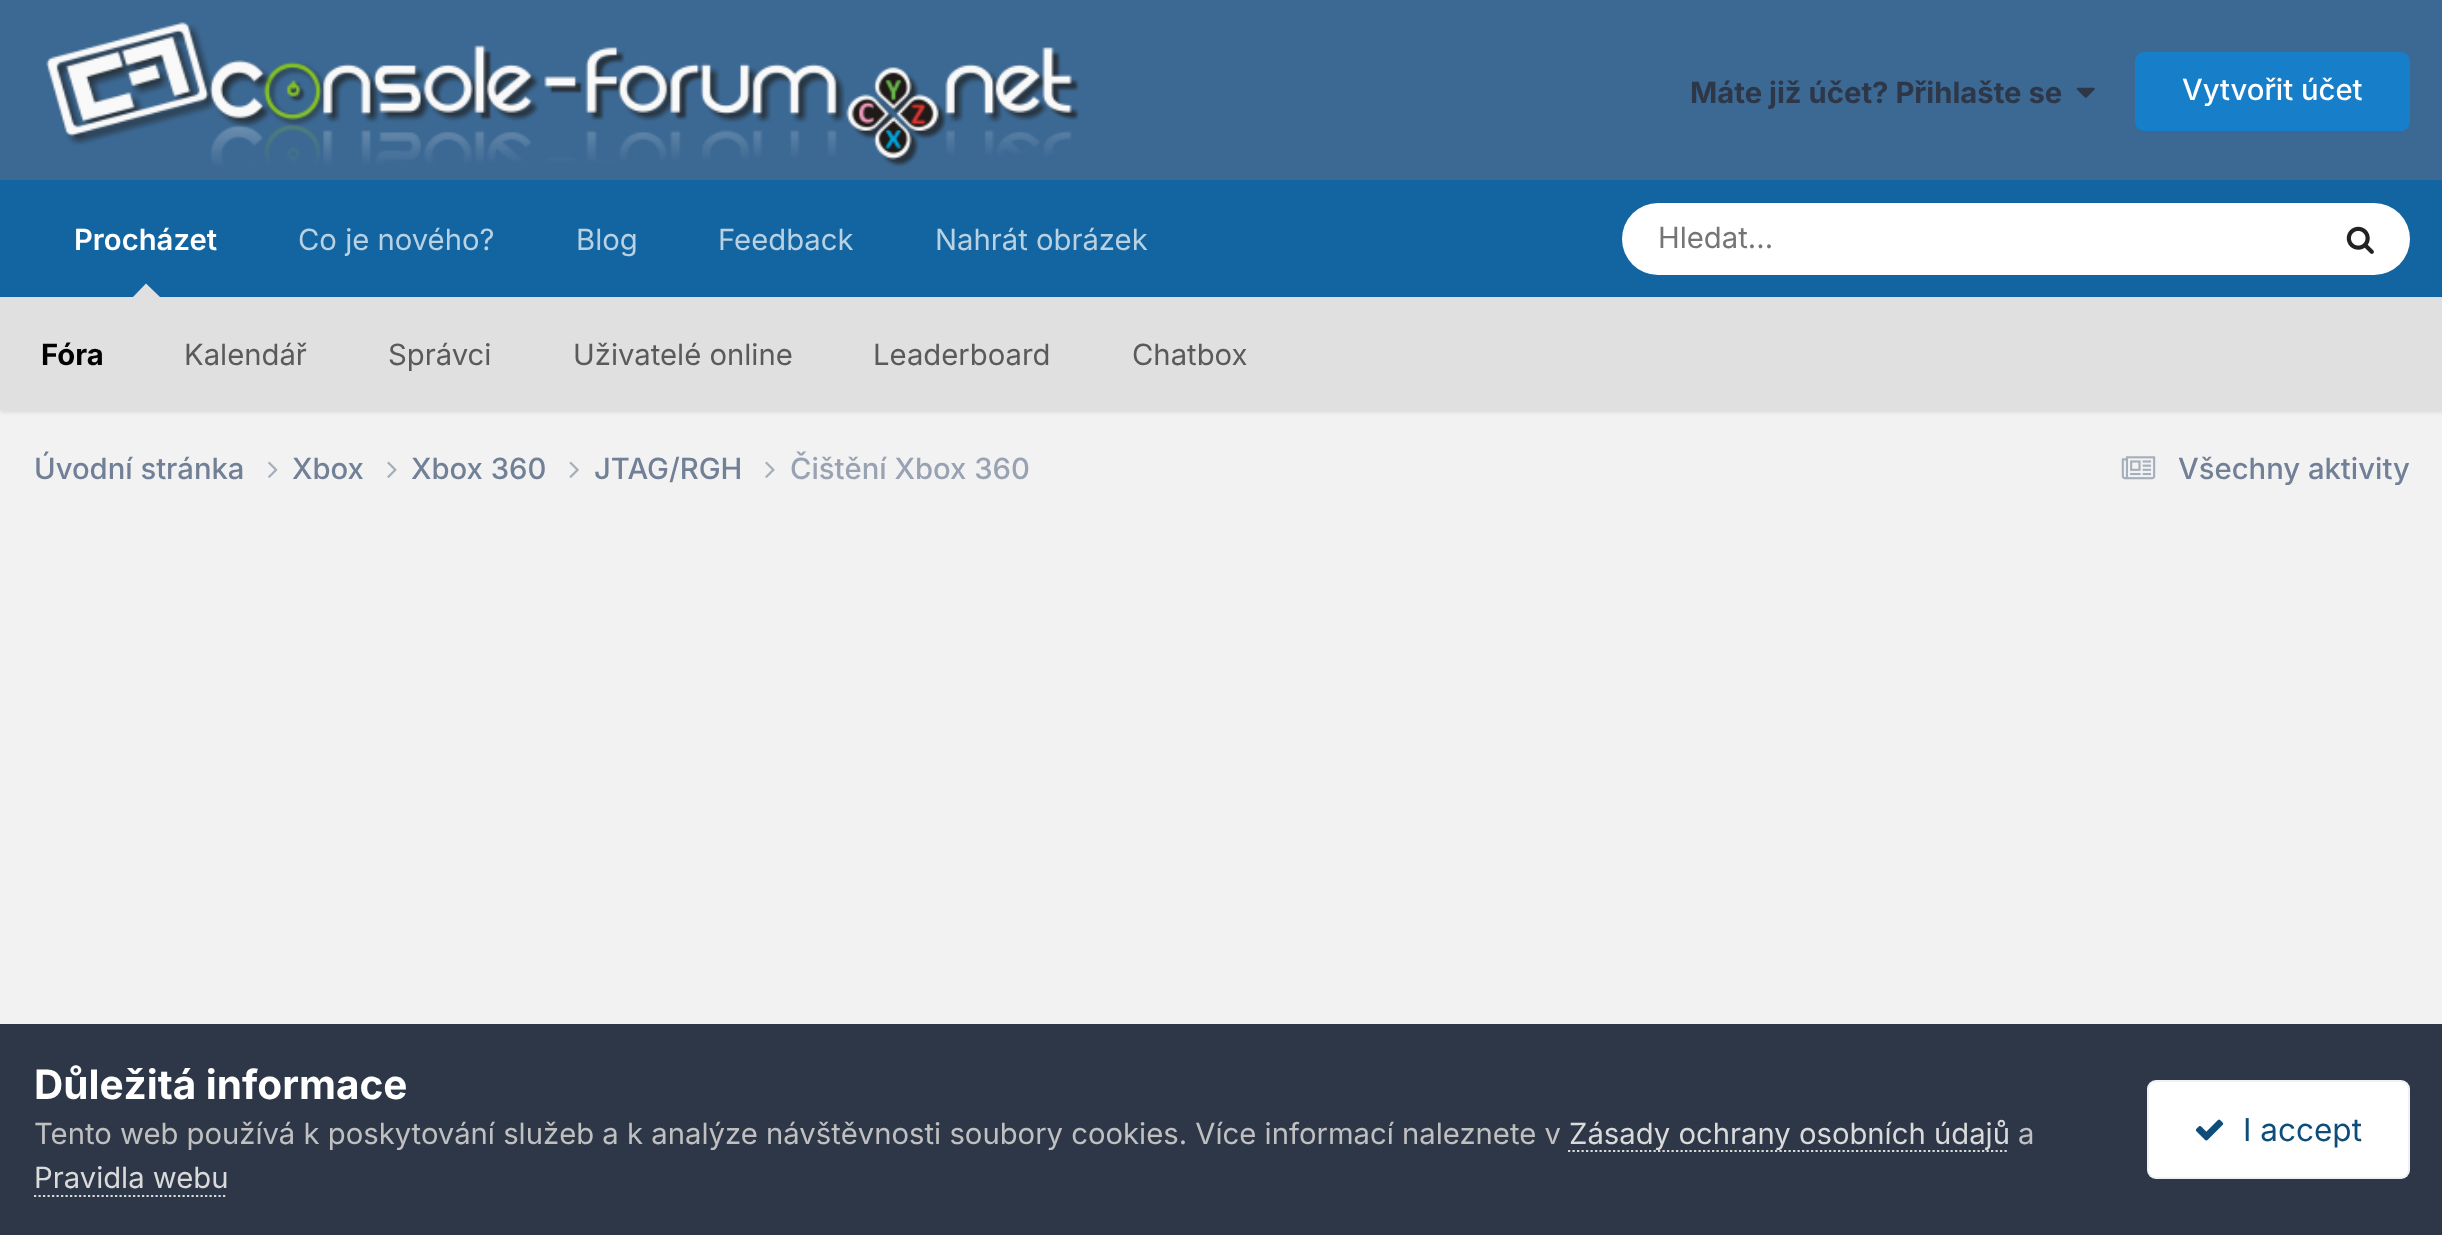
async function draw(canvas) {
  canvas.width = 2442;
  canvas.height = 1235;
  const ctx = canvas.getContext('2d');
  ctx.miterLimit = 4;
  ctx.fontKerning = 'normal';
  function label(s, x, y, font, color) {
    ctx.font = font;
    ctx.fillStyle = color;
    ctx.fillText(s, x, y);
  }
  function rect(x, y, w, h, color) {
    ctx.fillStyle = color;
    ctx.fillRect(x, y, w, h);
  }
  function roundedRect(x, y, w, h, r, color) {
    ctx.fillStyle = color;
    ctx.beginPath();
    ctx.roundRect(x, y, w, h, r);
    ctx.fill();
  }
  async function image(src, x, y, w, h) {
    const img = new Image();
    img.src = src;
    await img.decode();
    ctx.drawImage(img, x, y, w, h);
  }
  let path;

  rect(0, 0, 2442, 1235, '#f2f2f2');
  rect(0, 0, 2442, 180, '#3c6994');
  await image('assets/img1.png', 46, 22, 1033, 145);
  label('Máte již účet? Přihlašte se', 1690, 103, 'bold 29.25px Inter', '#2d3748');
  await image('assets/img2.png', 2076, 87, 19, 11);
  roundedRect(2135, 52, 275, 79, 9, '#177ec9');
  label('Vytvořit účet', 2182, 100, '500 29.25px Inter', '#fff');
  rect(0, 180, 2442, 117, '#1265a1');
  label('Procházet', 74, 250, '600 29.25px Inter', '#fff');
  ctx.fillStyle = '#0000001a';
  ctx.filter = 'blur(2px)';
  ctx.beginPath();
  ctx.rect(0, 299, 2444, 113);
  ctx.fill();
  ctx.filter = 'none';
  ctx.fillStyle = '#e0e0e0';
  path = new Path2D('M160 297H133L146 283.5Z');
  ctx.fill(path);
  rect(0, 297, 2442, 113, '#e0e0e0');
  label('Fóra', 41, 365, 'bold 29.25px Inter', '#000');
  label('Kalendář', 184, 365, '29.25px Inter', '#5a5a5a');
  label('Správci', 388, 365, '29.25px Inter', '#5a5a5a');
  label('Uživatelé online', 573, 365, '29.25px Inter', '#5a5a5a');
  label('Leaderboard', 873, 365, '29.25px Inter', '#5a5a5a');
  label('Chatbox', 1132, 365, '29.25px Inter', '#5a5a5a');
  label('Co je nového?', 298, 250, '29.25px Inter', '#b8d1e3');
  label('Blog', 576, 250, '29.25px Inter', '#b8d1e3');
  label('Feedback', 718, 250, '29.25px Inter', '#b8d1e3');
  label('Nahrát obrázek', 935, 250, '29.25px Inter', '#b8d1e3');
  roundedRect(1622, 203, 788, 72, 36, '#fff');
  label('Hledat...', 1658, 248, '29.25px Inter', '#757575');
  await image('assets/img3.png', 2346, 226, 28, 28);
  label('Úvodní stránka', 34, 479, '500 29.25px Inter', '#718096');
  await image('assets/img4.png', 268, 461, 10, 17);
  label('Xbox', 292, 479, '500 29.25px Inter', '#718096');
  await image('assets/img5.png', 387, 461, 10, 17);
  label('Xbox 360', 411, 479, '500 29.25px Inter', '#718096');
  await image('assets/img6.png', 569, 461, 10, 17);
  label('JTAG/RGH', 594, 479, '500 29.25px Inter', '#718096');
  await image('assets/img5.png', 765, 461, 10, 17);
  label('Čištění Xbox 360', 790, 479, '500 29.25px Inter', '#98a2b2');
  await image('assets/img7.png', 2121, 456, 35, 24);
  label('Všechny aktivity', 2178, 479, '500 29.25px Inter', '#718096');
  rect(0, 1024, 2442, 211, '#2d3748');
  label('Důležitá informace', 34, 1099, 'bold 40.5px Inter', '#fff');
  label('Tento web používá k poskytování služeb a k analýze návštěvnosti soubory cookies. Více informací naleznete v', 34, 1144, '29.25px Inter', '#c0c0c0');
  path = new Path2D('M1568 1151H2009');
  ctx.strokeStyle = '#dadada';
  ctx.lineWidth = 2.2;
  ctx.setLineDash([2.25, 2.25]);
  ctx.stroke(path);
  label('Zásady ochrany osobních údajů', 1569, 1144, '29.25px Inter', '#dadada');
  label('a', 2018, 1144, '29.25px Inter', '#c0c0c0');
  label('Pravidla webu', 34, 1188, '29.25px Inter', '#dadada');
  path = new Path2D('M34 1196H227');
  ctx.stroke(path);
  roundedRect(2147, 1080, 263, 99, 9, '#fff');
  ctx.beginPath();
  ctx.roundRect(2148, 1081, 261, 97, 8);
  ctx.strokeStyle = '#0e4c7912';
  ctx.lineWidth = 2;
  ctx.setLineDash([]);
  ctx.stroke();
  await image('assets/img8.png', 2195, 1119, 29, 22);
  label('I accept', 2243, 1141, '31.5px Inter', '#0e4c79');
}

draw(document.querySelector('canvas'));
